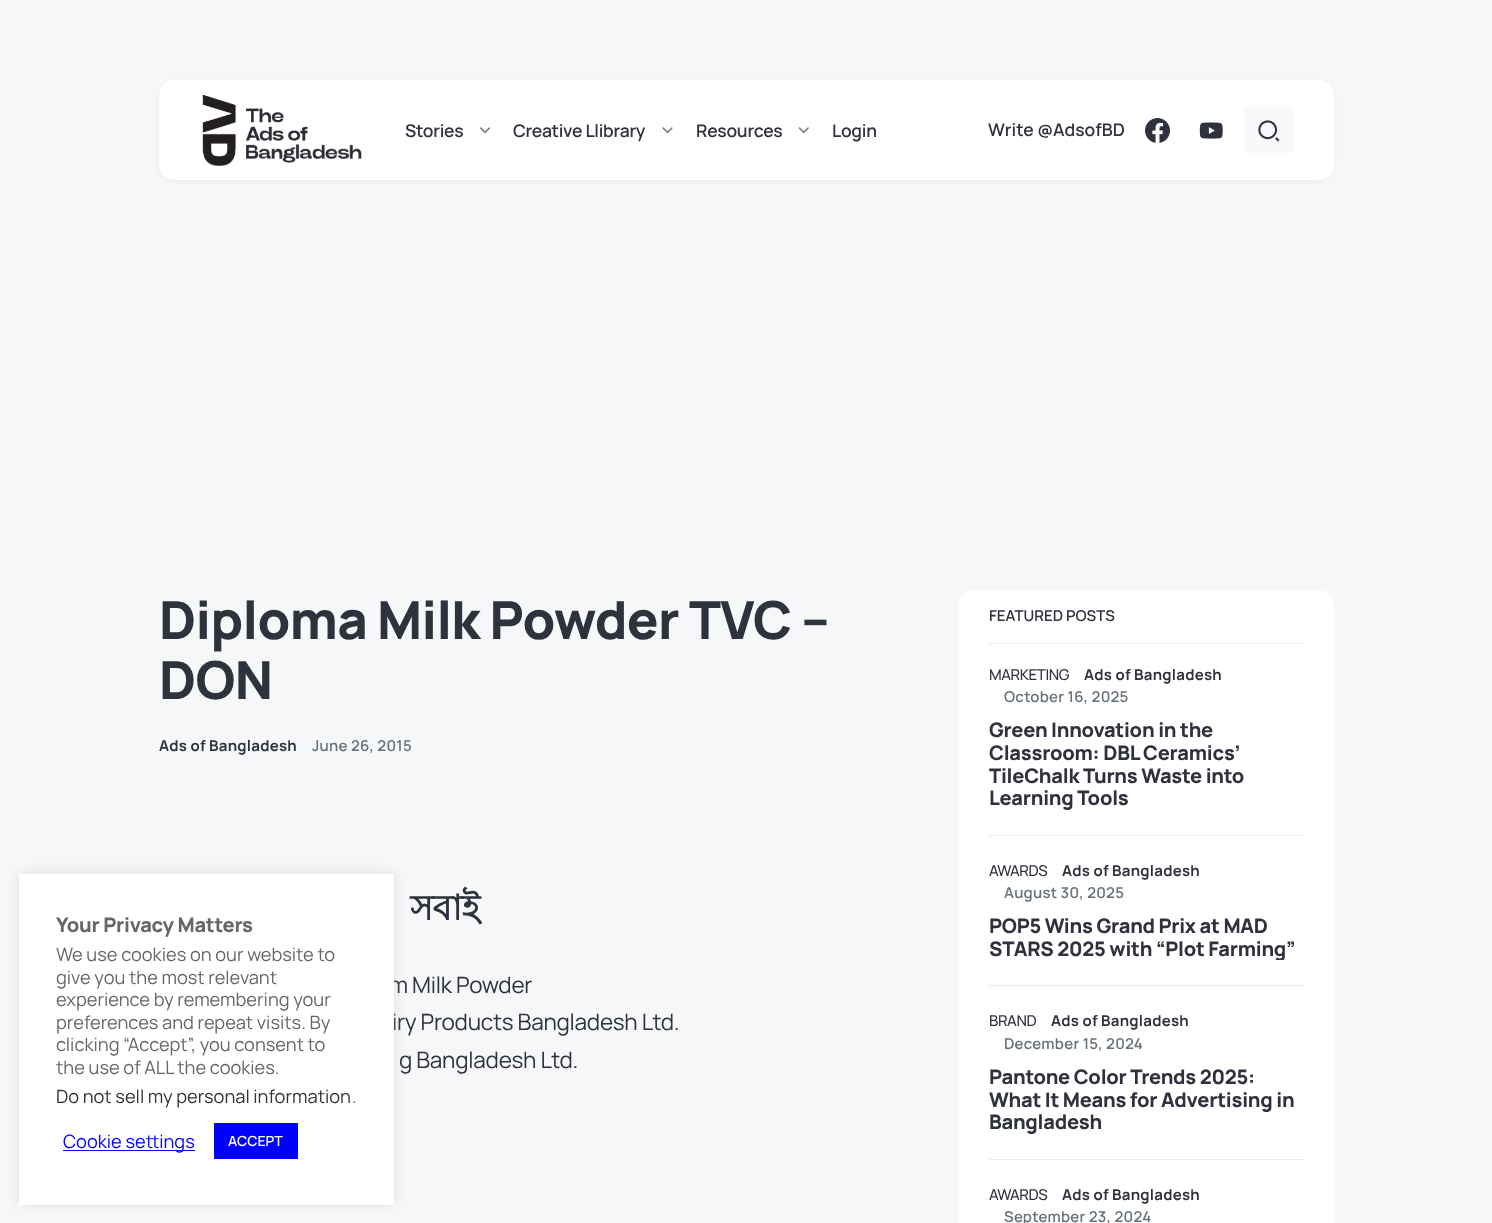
async function draw(canvas) {
  canvas.width = 1492;
  canvas.height = 1223;
  const ctx = canvas.getContext('2d');
  ctx.miterLimit = 4;
  ctx.fontKerning = 'normal';
  function label(s, x, y, font, color) {
    ctx.font = font;
    ctx.fillStyle = color;
    ctx.fillText(s, x, y);
  }
  function rect(x, y, w, h, color) {
    ctx.fillStyle = color;
    ctx.fillRect(x, y, w, h);
  }
  function roundedRect(x, y, w, h, r, color) {
    ctx.fillStyle = color;
    ctx.beginPath();
    ctx.roundRect(x, y, w, h, r);
    ctx.fill();
  }
  async function image(src, x, y, w, h) {
    const img = new Image();
    img.src = src;
    await img.decode();
    ctx.drawImage(img, x, y, w, h);
  }

  rect(0, 0, 1492, 1223, '#f5f7f8');
  ctx.fillStyle = '#0000000d';
  ctx.filter = 'blur(2px)';
  ctx.beginPath();
  ctx.roundRect(159, 81, 1175, 100, 15);
  ctx.fill();
  ctx.filter = 'none';
  roundedRect(159, 80, 1175, 100, 15, '#fff');
  await image('assets/img1.png', 202, 94, 160, 72);
  ctx.letterSpacing = '-0.25px';
  label('Stories', 405, 137, '600 17.5px Manrope', '#2f323d');
  await image('assets/img2.png', 480, 127, 10, 7);
  label('Creative Llibrary', 513, 137, '600 17.5px Manrope', '#2f323d');
  await image('assets/img3.png', 662, 127, 11, 7);
  label('Resources', 696, 137, '600 17.5px Manrope', '#2f323d');
  await image('assets/img4.png', 798, 127, 11, 7);
  label('Login', 832, 137, '600 17.5px Manrope', '#2f323d');
  ctx.letterSpacing = '0px';
  label('Write @AdsofBD', 988, 136, '600 17.5px Manrope', '#2f323d');
  await image('assets/img5.png', 1145, 118, 25, 25);
  await image('assets/img6.png', 1199, 122, 24, 17);
  roundedRect(1244, 105, 50, 50, 8, '#f8f9fa');
  await image('assets/img7.png', 1258, 120, 22, 22);
  ctx.letterSpacing = '-0.65px';
  label('Diploma Milk Powder TVC –', 159, 639, '800 52.5px Manrope', '#2f323d');
  label('DON', 159, 699, '800 52.5px Manrope', '#2f323d');
  ctx.letterSpacing = '0.25px';
  label('Ads of Bangladesh', 159, 751, 'bold 15px Manrope', '#2f323d');
  label('June 26, 2015', 312, 751, '600 15px Manrope', '#67717a');
  ctx.letterSpacing = '-0.5px';
  ctx.wordSpacing = '-1px';
  label('সবাই', 410, 920, 'bold 35px Lohit Bengali', '#2f323d');
  ctx.letterSpacing = '-0.25px';
  ctx.wordSpacing = '0px';
  label('m Milk Powder', 389, 993, '22.5px Manrope', '#2f323d');
  label('iry Products Bangladesh Ltd.', 392, 1030, '22.5px Manrope', '#2f323d');
  label('g Bangladesh Ltd.', 399, 1068, '22.5px Manrope', '#2f323d');
  roundedRect(959, 590, 375, 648, 15, '#fff');
  rect(989, 643, 315, 1, '#e9ecef');
  ctx.letterSpacing = '0px';
  label('FEATURED POSTS', 989, 621, '600 15px Manrope', '#2f323d');
  ctx.letterSpacing = '-0.4px';
  label('MARKETING', 989, 680, '500 15px Manrope', '#2f323d');
  ctx.letterSpacing = '0.25px';
  label('Ads of Bangladesh', 1084, 680, 'bold 15px Manrope', '#2f323d');
  label('October 16, 2025', 1004, 702, '600 15px Manrope', '#67717a');
  ctx.letterSpacing = '-0.25px';
  label('Green Innovation in the', 989, 737, '800 20px Manrope', '#2f323d');
  label('Classroom: DBL Ceramics’', 989, 760, '800 20px Manrope', '#2f323d');
  label('TileChalk Turns Waste into', 989, 783, '800 20px Manrope', '#2f323d');
  label('Learning Tools', 989, 805, '800 20px Manrope', '#2f323d');
  rect(989, 835, 315, 1, '#e9ecef');
  ctx.letterSpacing = '-0.4px';
  label('AWARDS', 989, 876, '500 15px Manrope', '#2f323d');
  ctx.letterSpacing = '0.25px';
  label('Ads of Bangladesh', 1062, 876, 'bold 15px Manrope', '#2f323d');
  label('August 30, 2025', 1004, 898, '600 15px Manrope', '#67717a');
  ctx.letterSpacing = '-0.25px';
  label('POP5 Wins Grand Prix at MAD', 989, 933, '800 20px Manrope', '#2f323d');
  ctx.save();
  ctx.beginPath();
  ctx.rect(989, 860, 315, 100);
  ctx.clip();
  label('STARS 2025 with “Plot Farming”', 989, 956, '800 20px Manrope', '#2f323d');
  ctx.restore();
  rect(989, 985, 315, 1, '#e9ecef');
  ctx.letterSpacing = '-0.4px';
  label('BRAND', 989, 1026, '500 15px Manrope', '#2f323d');
  ctx.letterSpacing = '0.25px';
  label('Ads of Bangladesh', 1051, 1026, 'bold 15px Manrope', '#2f323d');
  label('December 15, 2024', 1004, 1049, '600 15px Manrope', '#67717a');
  ctx.letterSpacing = '-0.25px';
  label('Pantone Color Trends 2025:', 989, 1084, '800 20px Manrope', '#2f323d');
  label('What It Means for Advertising in', 989, 1107, '800 20px Manrope', '#2f323d');
  label('Bangladesh', 989, 1129, '800 20px Manrope', '#2f323d');
  rect(989, 1159, 315, 1, '#e9ecef');
  ctx.letterSpacing = '-0.4px';
  label('AWARDS', 989, 1200, '500 15px Manrope', '#2f323d');
  ctx.letterSpacing = '0.25px';
  label('Ads of Bangladesh', 1062, 1200, 'bold 15px Manrope', '#2f323d');
  label('September 23, 2024', 1004, 1222, '600 15px Manrope', '#67717a');
  ctx.fillStyle = '#acabab4d';
  ctx.filter = 'blur(6px)';
  ctx.beginPath();
  ctx.rect(19, 873, 375, 331);
  ctx.fill();
  ctx.filter = 'none';
  rect(19, 874, 375, 331, '#fff');
  ctx.letterSpacing = '-0.25px';
  label('Your Privacy Matters', 56, 932, '800 20px Manrope', '#666');
  ctx.letterSpacing = '0px';
  label('We use cookies on our website to', 56, 961, '18.3px Manrope', '#666');
  label('give you the most relevant', 56, 984, '18.3px Manrope', '#666');
  label('experience by remembering your', 56, 1006, '18.3px Manrope', '#666');
  label('preferences and repeat visits. By', 56, 1029, '18.3px Manrope', '#666');
  label('clicking “Accept”, you consent to', 56, 1051, '18.3px Manrope', '#666');
  label('the use of ALL the cookies.', 56, 1074, '18.3px Manrope', '#666');
  label('Do not sell my personal information', 56, 1103, '18.3px Manrope', '#333');
  label('.', 352, 1103, '18.3px Manrope', '#666');
  rect(63, 1150, 132, 1, '#00f');
  label('Cookie settings', 63, 1148, '18.3px Manrope', '#00f');
  rect(214, 1123, 84, 36, '#00f');
  label('ACCEPT', 228, 1146, '600 14px Manrope', '#fff');
}

draw(document.querySelector('canvas'));
